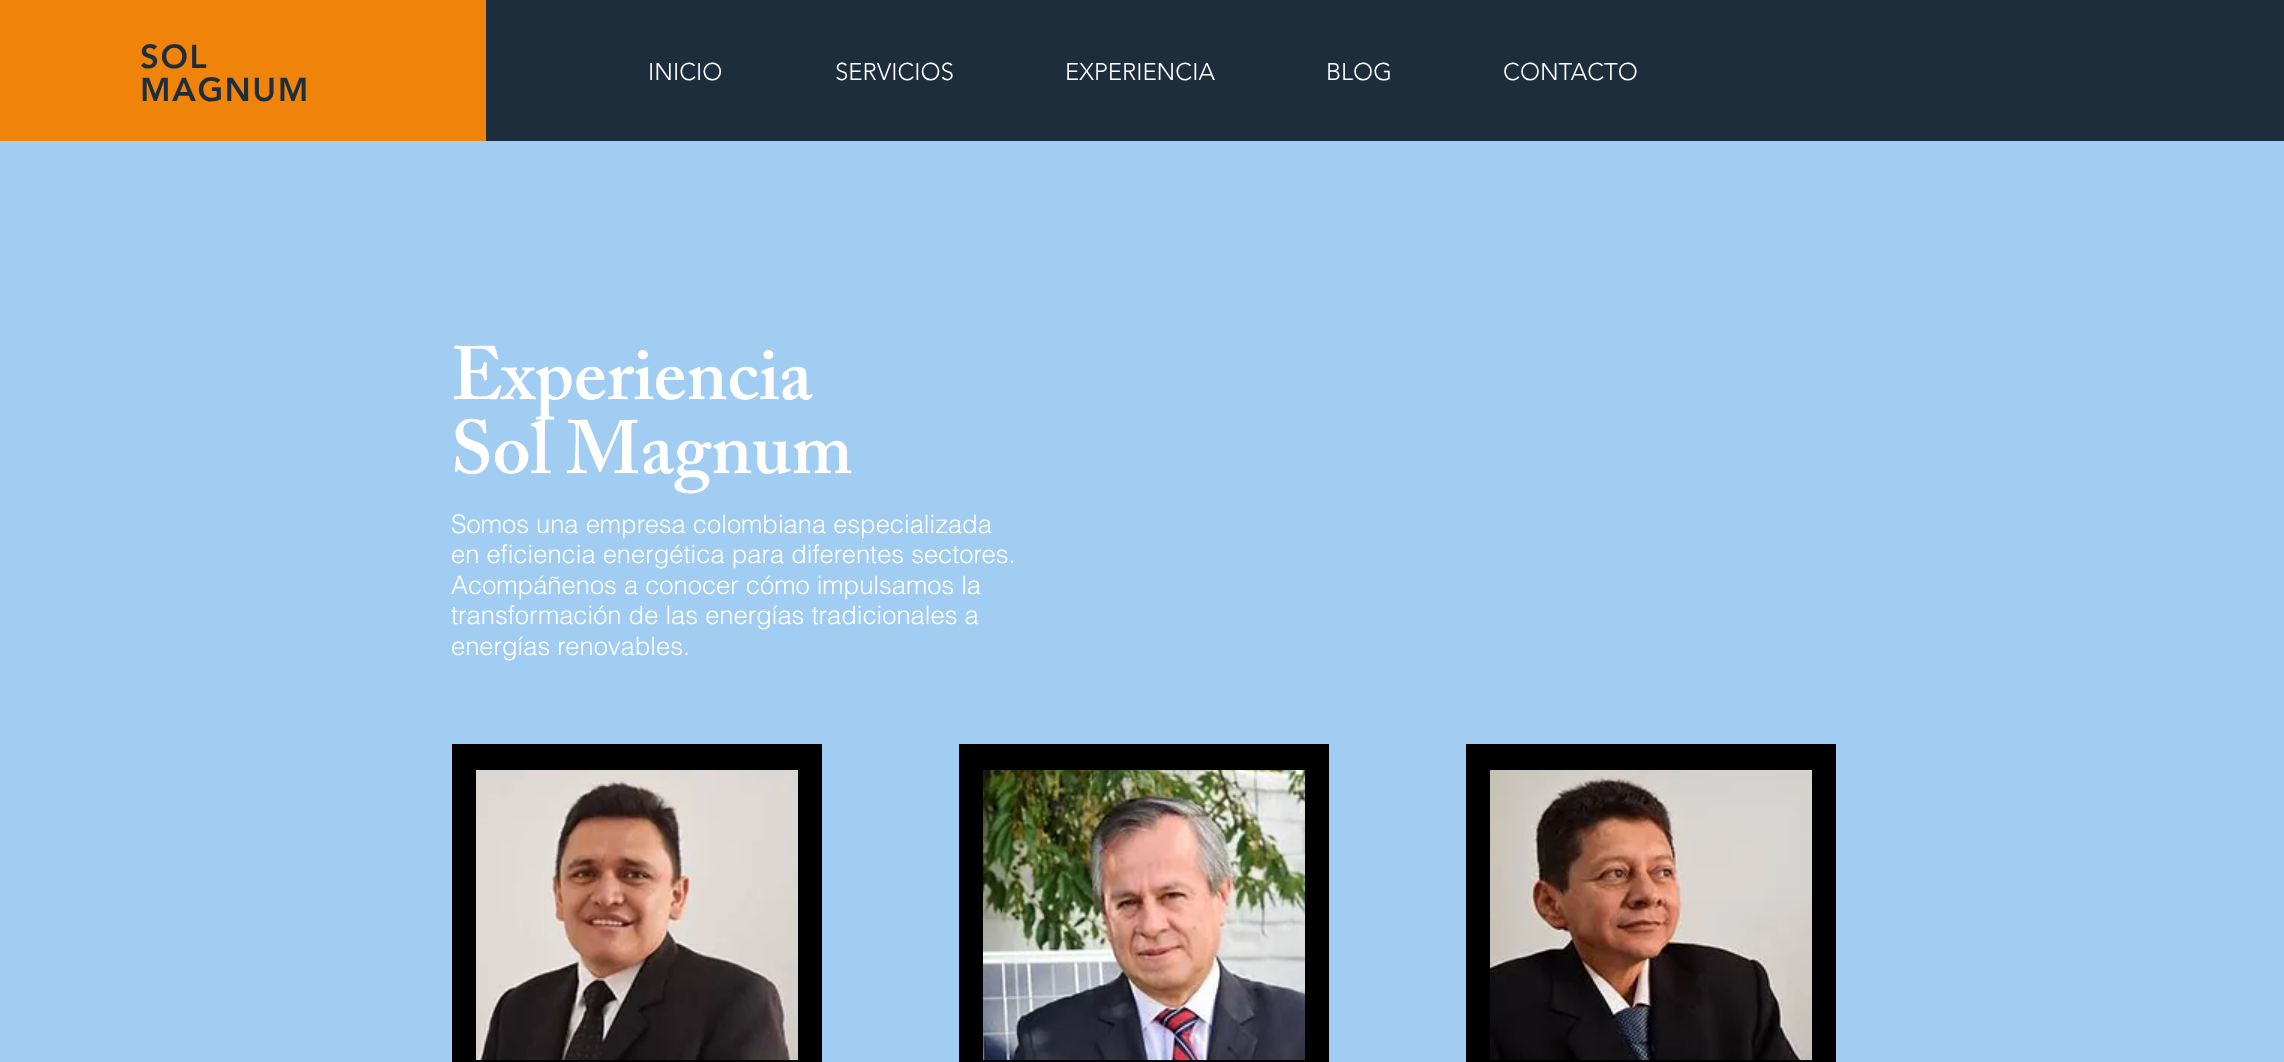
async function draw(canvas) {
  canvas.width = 2284;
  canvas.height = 1062;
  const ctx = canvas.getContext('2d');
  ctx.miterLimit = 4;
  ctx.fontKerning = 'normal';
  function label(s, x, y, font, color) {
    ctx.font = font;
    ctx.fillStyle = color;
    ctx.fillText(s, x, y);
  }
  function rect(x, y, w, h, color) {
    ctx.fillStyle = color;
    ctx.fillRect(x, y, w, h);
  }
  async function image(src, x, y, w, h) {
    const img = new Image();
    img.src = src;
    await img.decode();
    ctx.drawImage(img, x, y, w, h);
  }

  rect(0, 0, 2284, 1062, '#a2cdf2');
  rect(0, 0, 486, 141, '#f0840a');
  ctx.letterSpacing = '1.5px';
  label('SOL', 140, 68, '900 33px "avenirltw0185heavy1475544"', '#1e2d3b');
  label('MAGNUM', 140, 101, '900 33px "avenirltw0185heavy1475544"', '#1e2d3b');
  rect(486, 0, 1798, 141, '#1e2d3b');
  ctx.letterSpacing = '0px';
  label('INICIO', 648, 80, '300 24px "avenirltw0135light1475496"', '#fff');
  label('SERVICIOS', 835, 80, '300 24px "avenirltw0135light1475496"', '#fff');
  label('EXPERIENCIA', 1065, 80, '300 24px "avenirltw0135light1475496"', '#fff');
  label('BLOG', 1326, 80, '300 24px "avenirltw0135light1475496"', '#fff');
  label('CONTACTO', 1503, 80, '300 24px "avenirltw0135light1475496"', '#fff');
  label('Experiencia', 451, 399, '600 75px "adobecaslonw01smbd"', '#fff');
  label('Sol Magnum', 451, 473, '600 75px "adobecaslonw01smbd"', '#fff');
  label('Somos una empresa colombiana especializada', 451, 533, '300 25.5px helvetica', '#fff');
  label('en eficiencia energética para diferentes sectores.', 451, 563, '300 25.5px helvetica', '#fff');
  label('Acompáñenos a conocer cómo impulsamos la', 451, 594, '300 25.5px helvetica', '#fff');
  label('transformación de las energías tradicionales a', 451, 624, '300 25.5px helvetica', '#fff');
  label('energías renovables.', 451, 655, '300 25.5px helvetica', '#fff');
  rect(452, 744, 370, 318, '#000');
  await image('assets/img1.png', 476, 770, 322, 291);
  rect(959, 744, 370, 318, '#000');
  await image('assets/img2.png', 983, 770, 322, 291);
  rect(1466, 744, 370, 318, '#000');
  await image('assets/img3.png', 1490, 770, 322, 291);
}

draw(document.querySelector('canvas'));
